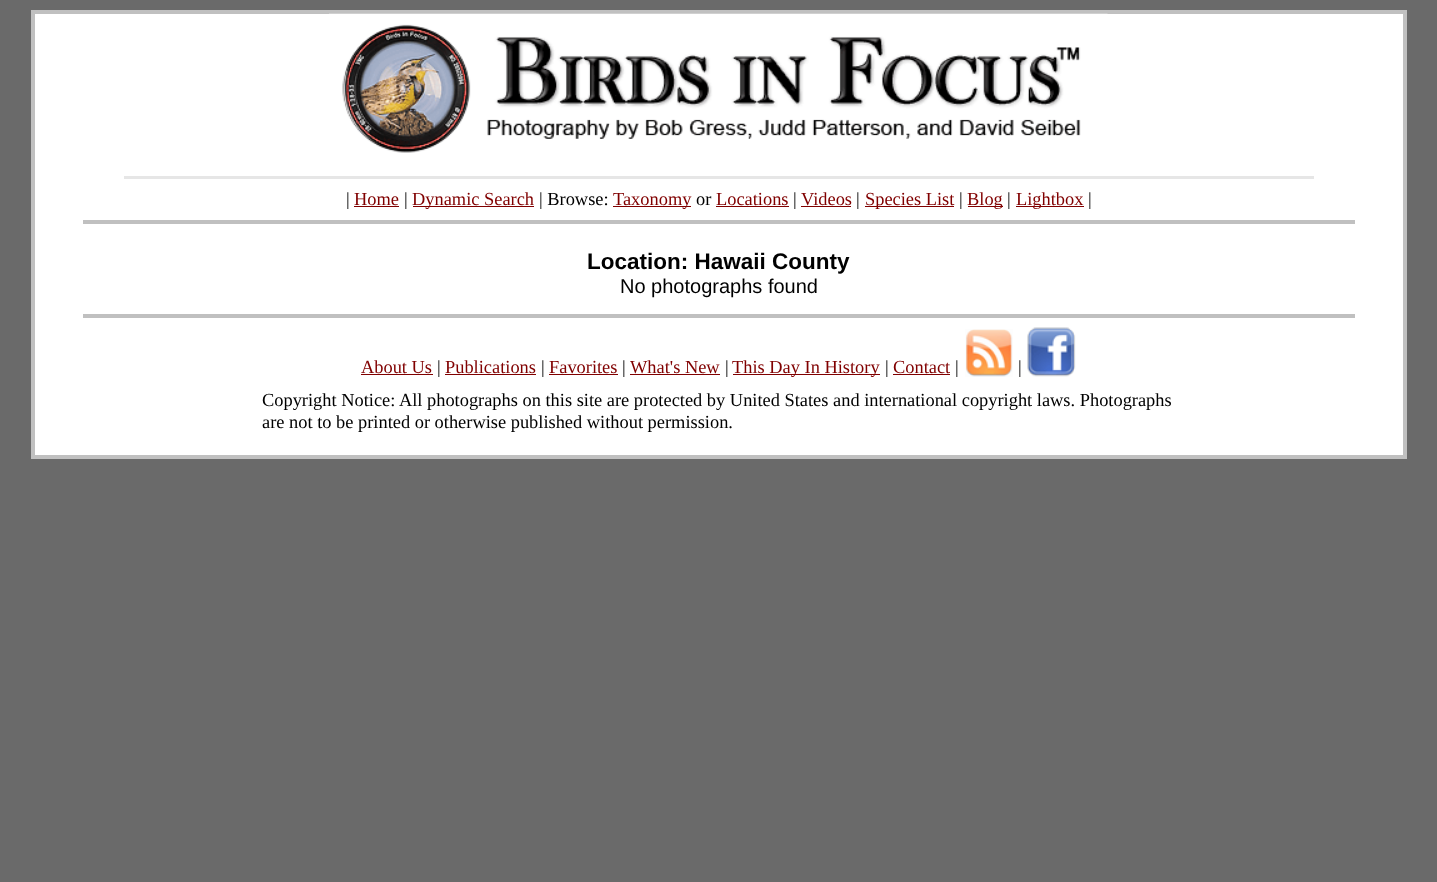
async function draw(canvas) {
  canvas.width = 1437;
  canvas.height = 882;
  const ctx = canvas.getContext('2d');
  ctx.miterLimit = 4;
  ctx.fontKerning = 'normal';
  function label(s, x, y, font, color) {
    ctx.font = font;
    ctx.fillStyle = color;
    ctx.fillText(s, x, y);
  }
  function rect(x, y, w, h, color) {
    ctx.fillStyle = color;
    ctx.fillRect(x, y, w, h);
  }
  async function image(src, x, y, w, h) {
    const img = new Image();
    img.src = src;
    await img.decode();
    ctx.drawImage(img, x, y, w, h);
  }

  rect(0, 0, 1437, 882, '#6a6a6a');
  rect(35, 14, 1368, 441, '#fff');
  rect(31, 10, 1375, 4, '#c0c0c0');
  rect(1403, 10, 4, 449, '#c0c0c0');
  rect(31, 455, 1375, 4, '#c0c0c0');
  rect(31, 10, 4, 449, '#c0c0c0');
  await image('assets/img1.png', 329, 13, 779, 140);
  rect(124, 176, 1190, 3, '#e6e6e6');
  label('|', 346, 205, '18.4px Liberation Serif', '#000');
  label('Home', 354, 205, '18.4px Liberation Serif', '#800000');
  rect(354, 206, 45, 1, '#800000');
  label('|', 404, 205, '18.4px Liberation Serif', '#000');
  rect(413, 206, 121, 1, '#800000');
  label('Dynamic Search', 412, 205, '18.4px Liberation Serif', '#800000');
  label('| Browse:', 539, 205, '18.4px Liberation Serif', '#000');
  rect(613, 206, 78, 1, '#800000');
  label('Taxonomy', 613, 205, '18.4px Liberation Serif', '#800000');
  label('or', 696, 205, '18.4px Liberation Serif', '#000');
  label('Locations', 716, 205, '18.4px Liberation Serif', '#800000');
  rect(716, 206, 73, 1, '#800000');
  label('|', 793, 205, '18.4px Liberation Serif', '#000');
  label('Videos', 801, 205, '18.4px Liberation Serif', '#800000');
  rect(801, 206, 50, 1, '#800000');
  label('|', 856, 205, '18.4px Liberation Serif', '#000');
  rect(865, 206, 89, 1, '#800000');
  label('Species List', 865, 205, '18.4px Liberation Serif', '#800000');
  label('|', 959, 205, '18.4px Liberation Serif', '#000');
  rect(968, 206, 35, 1, '#800000');
  label('Blog', 967, 205, '18.4px Liberation Serif', '#800000');
  label('|', 1007, 205, '18.4px Liberation Serif', '#000');
  rect(1016, 206, 68, 1, '#800000');
  label('Lightbox', 1016, 205, '18.4px Liberation Serif', '#800000');
  label('|', 1088, 205, '18.4px Liberation Serif', '#000');
  rect(83, 220, 1272, 4, '#c0c0c0');
  label('Location: Hawaii County', 587, 269, 'bold 22.5px Liberation Sans', '#000');
  label('No photographs found', 620, 293, '20px Liberation Sans', '#000');
  rect(83, 314, 1272, 4, '#c0c0c0');
  label('About Us', 361, 373, '18.4px Liberation Serif', '#800000');
  rect(361, 374, 72, 1, '#800000');
  label('|', 437, 373, '18.4px Liberation Serif', '#000');
  label('Publications', 445, 373, '18.4px Liberation Serif', '#800000');
  rect(445, 374, 91, 1, '#800000');
  label('|', 541, 373, '18.4px Liberation Serif', '#000');
  label('Favorites', 549, 373, '18.4px Liberation Serif', '#800000');
  rect(549, 374, 69, 1, '#800000');
  label('|', 622, 373, '18.4px Liberation Serif', '#000');
  label('What\'s New', 630, 373, '18.4px Liberation Serif', '#800000');
  rect(630, 374, 90, 1, '#800000');
  label('|', 725, 373, '18.4px Liberation Serif', '#000');
  rect(733, 374, 147, 1, '#800000');
  label('This Day In History', 732, 373, '18.4px Liberation Serif', '#800000');
  label('|', 885, 373, '18.4px Liberation Serif', '#000');
  label('Contact', 893, 373, '18.4px Liberation Serif', '#800000');
  rect(893, 374, 57, 1, '#800000');
  label('|', 955, 373, '18.4px Liberation Serif', '#000');
  await image('assets/img2.png', 965, 329, 48, 48);
  label('|', 1018, 373, '18.4px Liberation Serif', '#000');
  await image('assets/img3.png', 1027, 327, 49, 50);
  label('Copyright Notice: All photographs on this site are protected by United States and international copyright laws. Photographs', 262, 406, '18.4px Liberation Serif', '#000');
  label('are not to be printed or otherwise published without permission.', 262, 428, '18.4px Liberation Serif', '#000');
}

draw(document.querySelector('canvas'));
